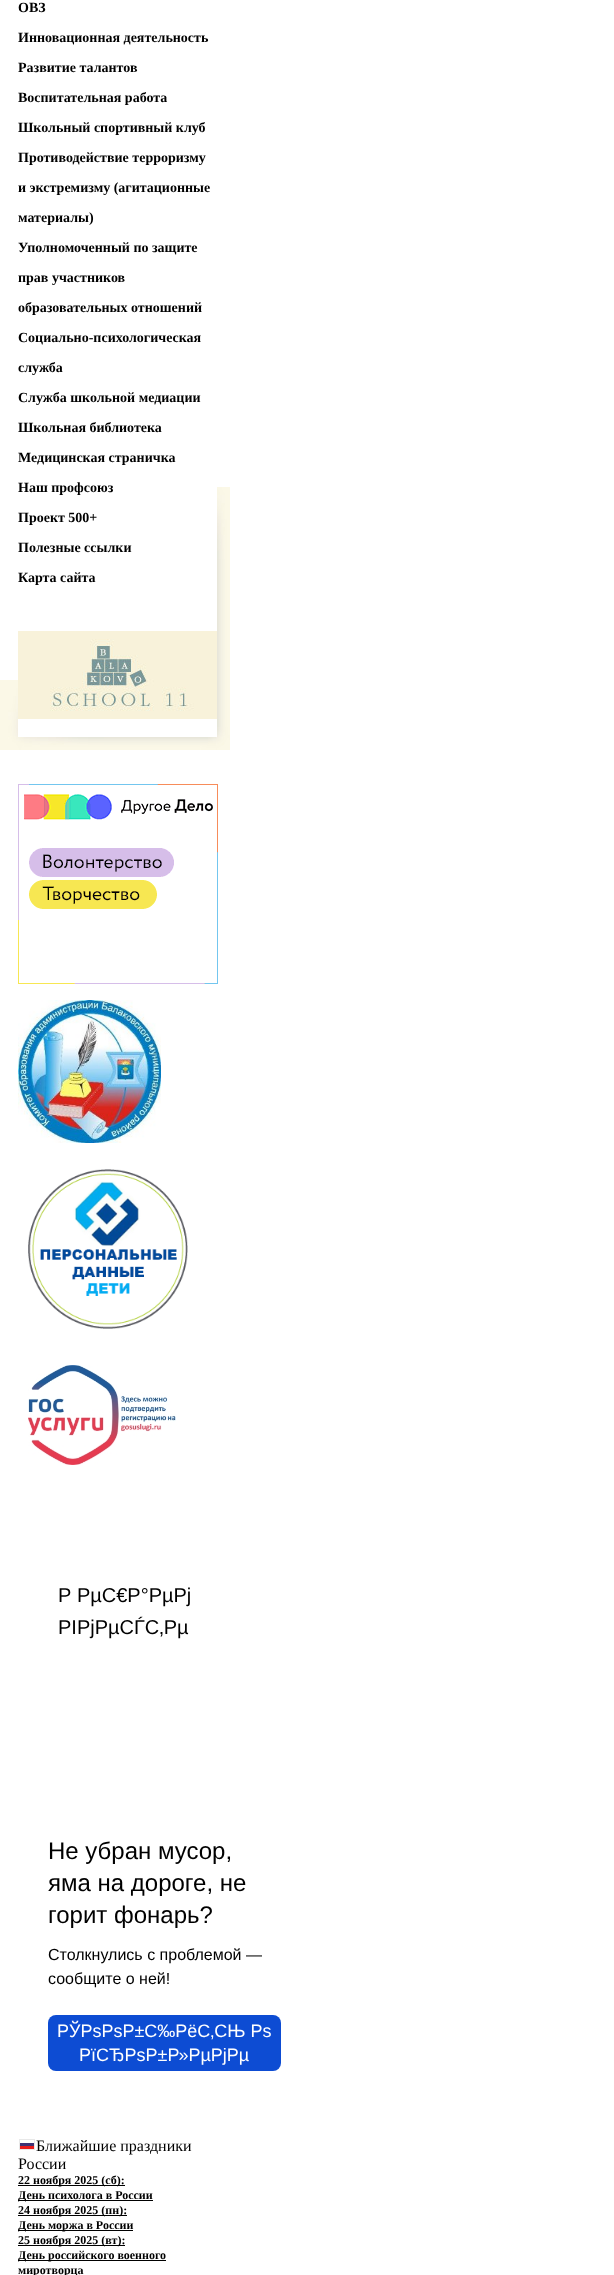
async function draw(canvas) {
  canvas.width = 614;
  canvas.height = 2275;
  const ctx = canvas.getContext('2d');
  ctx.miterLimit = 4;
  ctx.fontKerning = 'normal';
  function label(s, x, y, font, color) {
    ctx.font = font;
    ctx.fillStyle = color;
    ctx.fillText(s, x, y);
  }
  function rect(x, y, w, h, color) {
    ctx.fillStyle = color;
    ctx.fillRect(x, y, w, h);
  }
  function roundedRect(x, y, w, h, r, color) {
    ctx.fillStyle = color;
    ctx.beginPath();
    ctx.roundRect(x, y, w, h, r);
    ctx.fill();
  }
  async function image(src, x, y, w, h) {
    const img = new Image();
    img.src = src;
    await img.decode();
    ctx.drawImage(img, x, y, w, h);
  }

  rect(0, 0, 614, 2275, '#fff');
  label('ОВЗ', 18, 12, 'bold 14px Liberation Serif', '#000');
  label('Инновационная деятельность', 18, 42, 'bold 14px Liberation Serif', '#000');
  label('Развитие талантов', 18, 72, 'bold 14px Liberation Serif', '#000');
  label('Воспитательная работа', 18, 102, 'bold 14px Liberation Serif', '#000');
  label('Школьный спортивный клуб', 18, 132, 'bold 14px Liberation Serif', '#000');
  label('Противодействие терроризму', 18, 162, 'bold 14px Liberation Serif', '#000');
  label('и экстремизму (агитационные', 18, 192, 'bold 14px Liberation Serif', '#000');
  label('материалы)', 18, 222, 'bold 14px Liberation Serif', '#000');
  label('Уполномоченный по защите', 18, 252, 'bold 14px Liberation Serif', '#000');
  label('прав участников', 18, 282, 'bold 14px Liberation Serif', '#000');
  label('образовательных отношений', 18, 312, 'bold 14px Liberation Serif', '#000');
  label('Социально-психологическая', 18, 342, 'bold 14px Liberation Serif', '#000');
  label('служба', 18, 372, 'bold 14px Liberation Serif', '#000');
  label('Служба школьной медиации', 18, 402, 'bold 14px Liberation Serif', '#000');
  label('Школьная библиотека', 18, 432, 'bold 14px Liberation Serif', '#000');
  label('Медицинская страничка', 18, 462, 'bold 14px Liberation Serif', '#000');
  label('Наш профсоюз', 18, 492, 'bold 14px Liberation Serif', '#000');
  label('Проект 500+', 18, 522, 'bold 14px Liberation Serif', '#000');
  label('Полезные ссылки', 18, 552, 'bold 14px Liberation Serif', '#000');
  label('Карта сайта', 18, 582, 'bold 14px Liberation Serif', '#000');
  await image('assets/img1.png', 18, 631, 199, 88);
  await image('assets/img2.png', 0, 680, 18, 57);
  await image('assets/img3.png', 217, 487, 13, 250);
  await image('assets/img4.png', 0, 737, 230, 13);
  await image('assets/img5.png', 18, 784, 200, 200);
  await image('assets/img6.png', 18, 1000, 143, 143);
  await image('assets/img7.png', 28, 1169, 160, 160);
  await image('assets/img8.png', 28, 1365, 148, 100);
  label('Р РµС€Р°РµРј', 58, 1602, '20px Liberation Sans', '#000');
  label('РІРјРµСЃС‚Рµ', 58, 1634, '20px Liberation Sans', '#000');
  label('Не убран мусор,', 48, 1859, '24px Liberation Sans', '#000');
  label('яма на дороге, не', 48, 1891, '24px Liberation Sans', '#000');
  label('горит фонарь?', 48, 1923, '24px Liberation Sans', '#000');
  label('Столкнулись с проблемой —', 48, 1960, '16px Liberation Sans', '#000');
  label('сообщите о ней!', 48, 1984, '16px Liberation Sans', '#000');
  roundedRect(48, 2015, 233, 56, 8, '#0d4cd3');
  label('РЎРѕРѕР±С‰РёС‚СЊ Рѕ', 57, 2037, '18px Liberation Sans', '#fff');
  label('РїСЂРѕР±Р»РµРјРµ', 79, 2061, '18px Liberation Sans', '#fff');
  await image('assets/img9.png', 19, 2139, 16, 11);
  label('Ближайшие праздники', 36, 2151, '16px Liberation Serif', '#000');
  label('России', 18, 2169, '16px Liberation Serif', '#000');
  rect(18, 2185, 107, 1, '#000');
  label('22 ноября 2025 (сб):', 18, 2184, 'bold 12px Liberation Serif', '#000');
  rect(18, 2200, 135, 1, '#000');
  label('День психолога в России', 18, 2199, 'bold 12px Liberation Serif', '#000');
  rect(18, 2215, 109, 1, '#000');
  label('24 ноября 2025 (пн):', 18, 2214, 'bold 12px Liberation Serif', '#000');
  rect(18, 2230, 115, 1, '#000');
  label('День моржа в России', 18, 2229, 'bold 12px Liberation Serif', '#000');
  rect(18, 2245, 107, 1, '#000');
  label('25 ноября 2025 (вт):', 18, 2244, 'bold 12px Liberation Serif', '#000');
  rect(18, 2260, 148, 1, '#000');
  label('День российского военного', 18, 2259, 'bold 12px Liberation Serif', '#000');
  label('миротворца', 18, 2274, 'bold 12px Liberation Serif', '#000');
}

draw(document.querySelector('canvas'));
